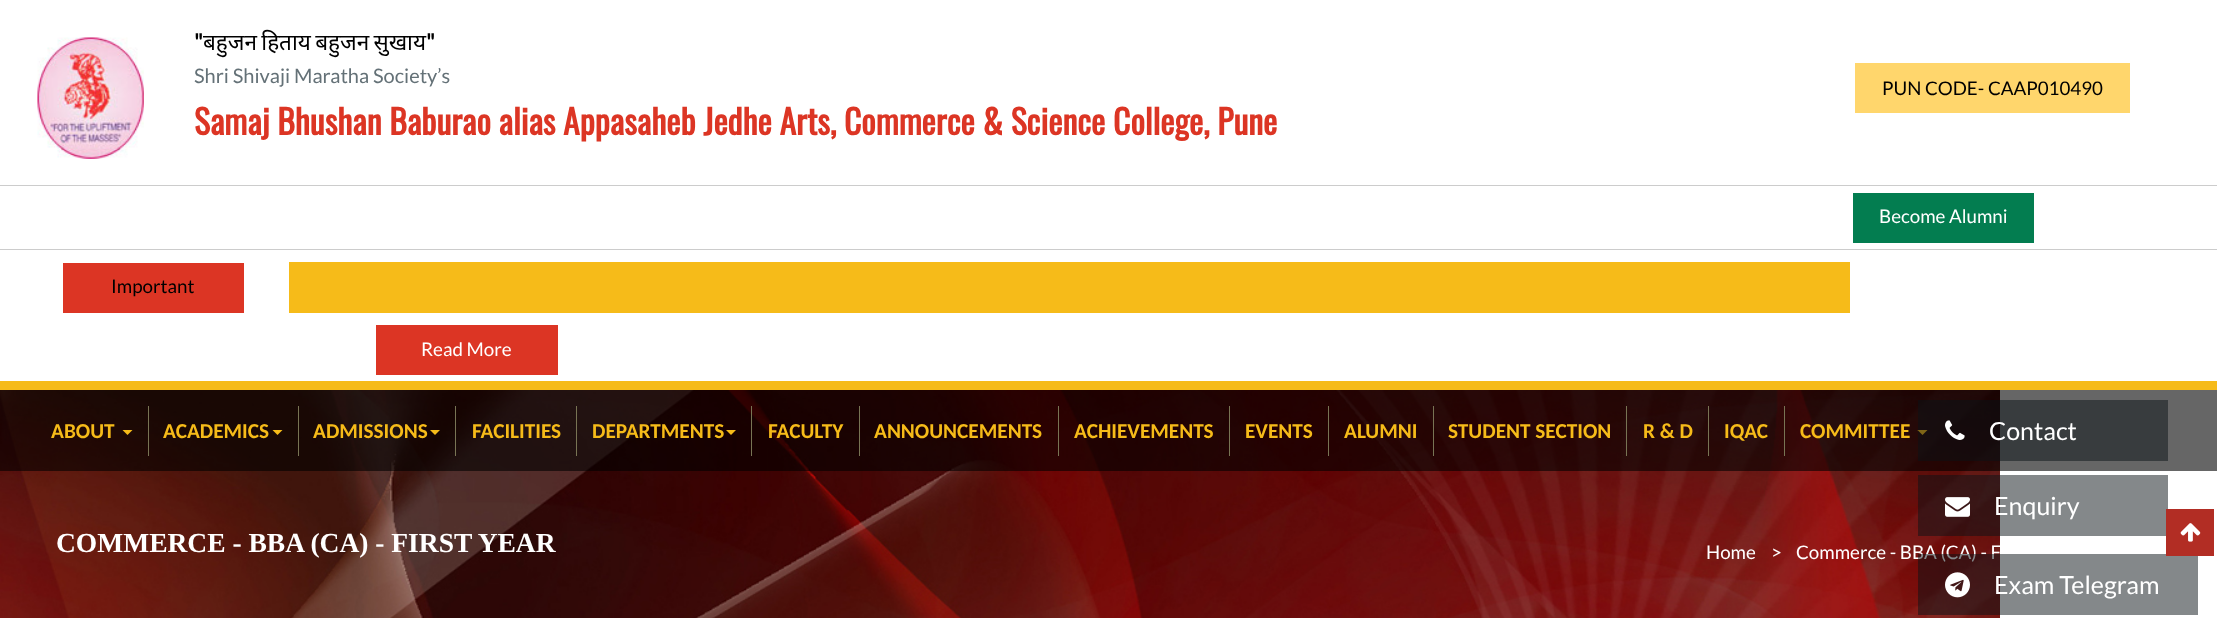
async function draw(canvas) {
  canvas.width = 2217;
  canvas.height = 618;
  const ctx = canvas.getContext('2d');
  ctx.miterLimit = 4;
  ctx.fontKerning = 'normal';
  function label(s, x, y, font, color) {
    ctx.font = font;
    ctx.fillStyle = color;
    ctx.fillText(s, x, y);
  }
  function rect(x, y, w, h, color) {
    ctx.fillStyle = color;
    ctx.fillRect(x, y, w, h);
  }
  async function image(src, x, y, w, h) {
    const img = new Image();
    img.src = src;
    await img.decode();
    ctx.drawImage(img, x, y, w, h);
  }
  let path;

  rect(0, 0, 2217, 618, '#fff');
  rect(0, 381, 2217, 9, '#f6bb19');
  await image('assets/img1.png', 37, 37, 107, 122);
  label('"', 194, 50, 'bold 22.5px Lato', '#000');
  ctx.wordSpacing = '-1.5px';
  label('बहुजन हिताय बहुजन सुखाय', 203, 50, '22.5px Noto Sans', '#000');
  ctx.wordSpacing = '0px';
  label('"', 426, 50, 'bold 22.5px Lato', '#000');
  label('Shri Shivaji Maratha Society’s', 194, 83, '20px Lato', '#647177');
  label('Samaj Bhushan Baburao alias Appasaheb Jedhe Arts, Commerce & Science College, Pune', 194, 135, 'bold 33.75px Oswald', '#dc3524');
  rect(1855, 63, 275, 50, '#ffd66c');
  label('PUN CODE- CAAP010490', 1882, 95, '18.75px Lato', '#000');
  rect(0, 185, 2217, 1, '#ccc');
  rect(1853, 193, 181, 50, '#037d50');
  label('Become Alumni', 1879, 223, '18.75px Lato', '#fff');
  rect(0, 249, 2217, 1, '#ccc');
  rect(63, 263, 181, 50, '#dc3524');
  label('Important', 111, 293, '18.75px Lato', '#000');
  rect(289, 262, 1561, 51, '#f6bb19');
  rect(376, 325, 182, 50, '#dc3524');
  label('Read More', 421, 356, '18.75px Lato', '#fff');
  await image('assets/img6.png', 0, 390, 2000, 228);
  rect(0, 390, 2217, 81, '#00000099');
  rect(148, 406, 1, 50, '#787454');
  label('ABOUT', 51, 438, 'bold 21.25px Carlito', '#f6bb19');
  path = new Path2D('M122.5 430H132.5L127.5 435Z');
  ctx.fill(path);
  rect(298, 406, 1, 50, '#787454');
  label('ACADEMICS', 163, 438, 'bold 21.25px Carlito', '#f6bb19');
  path = new Path2D('M272.5 430H282.5L277.5 435Z');
  ctx.fill(path);
  rect(455, 406, 1, 50, '#787454');
  label('ADMISSIONS', 313, 438, 'bold 21.25px Carlito', '#f6bb19');
  path = new Path2D('M430 430H440L435 435Z');
  ctx.fill(path);
  rect(576, 406, 1, 50, '#787454');
  label('FACILITIES', 472, 438, 'bold 21.25px Carlito', '#f6bb19');
  rect(751, 406, 1, 50, '#787454');
  label('DEPARTMENTS', 592, 438, 'bold 21.25px Carlito', '#f6bb19');
  path = new Path2D('M726 430H736L731 435Z');
  ctx.fill(path);
  rect(859, 406, 1, 50, '#787454');
  label('FACULTY', 768, 438, 'bold 21.25px Carlito', '#f6bb19');
  rect(1058, 406, 1, 50, '#787454');
  label('ANNOUNCEMENTS', 874, 438, 'bold 21.25px Carlito', '#f6bb19');
  rect(1229, 406, 1, 50, '#787454');
  label('ACHIEVEMENTS', 1074, 438, 'bold 21.25px Carlito', '#f6bb19');
  rect(1328, 406, 1, 50, '#787454');
  label('EVENTS', 1245, 438, 'bold 21.25px Carlito', '#f6bb19');
  rect(1433, 406, 1, 50, '#787454');
  label('ALUMNI', 1344, 438, 'bold 21.25px Carlito', '#f6bb19');
  rect(1626, 406, 1, 50, '#787454');
  label('STUDENT SECTION', 1448, 438, 'bold 21.25px Carlito', '#f6bb19');
  rect(1708, 406, 1, 50, '#787454');
  label('R & D', 1643, 438, 'bold 21.25px Carlito', '#f6bb19');
  rect(1784, 406, 1, 50, '#787454');
  label('IQAC', 1724, 438, 'bold 21.25px Carlito', '#f6bb19');
  label('COMMITTEE', 1800, 438, 'bold 21.25px Carlito', '#f6bb19');
  path = new Path2D('M1917.5 430H1927.5L1922.5 435Z');
  ctx.fill(path);
  rect(1918, 400, 250, 61, '#0a121680');
  await image('assets/img2.png', 1945, 420, 20, 20);
  label('Contact', 1989, 440, '25px Lato', '#fff');
  rect(1918, 475, 250, 61, '#0a121680');
  await image('assets/img3.png', 1945, 497, 25, 20);
  label('Enquiry', 1994, 515, '25px Lato', '#fff');
  label('Commerce - BBA (CA) - F', 1796, 559, '18.75px Lato', '#fff');
  rect(1918, 554, 280, 61, '#0a121680');
  await image('assets/img4.png', 1945, 572, 25, 26);
  label('Exam Telegram', 1994, 594, '25px Lato', '#fff');
  rect(2166, 509, 48, 47, '#b22d24');
  await image('assets/img5.png', 2180, 523, 21, 19);
  label('COMMERCE - BBA (CA) - FIRST YEAR', 56, 552, 'bold 27.5px Liberation Serif', '#fff');
  label('Home', 1706, 559, '18.75px Lato', '#fff');
  label('>', 1771, 559, '18.75px Lato', '#fff');
}

draw(document.querySelector('canvas'));
